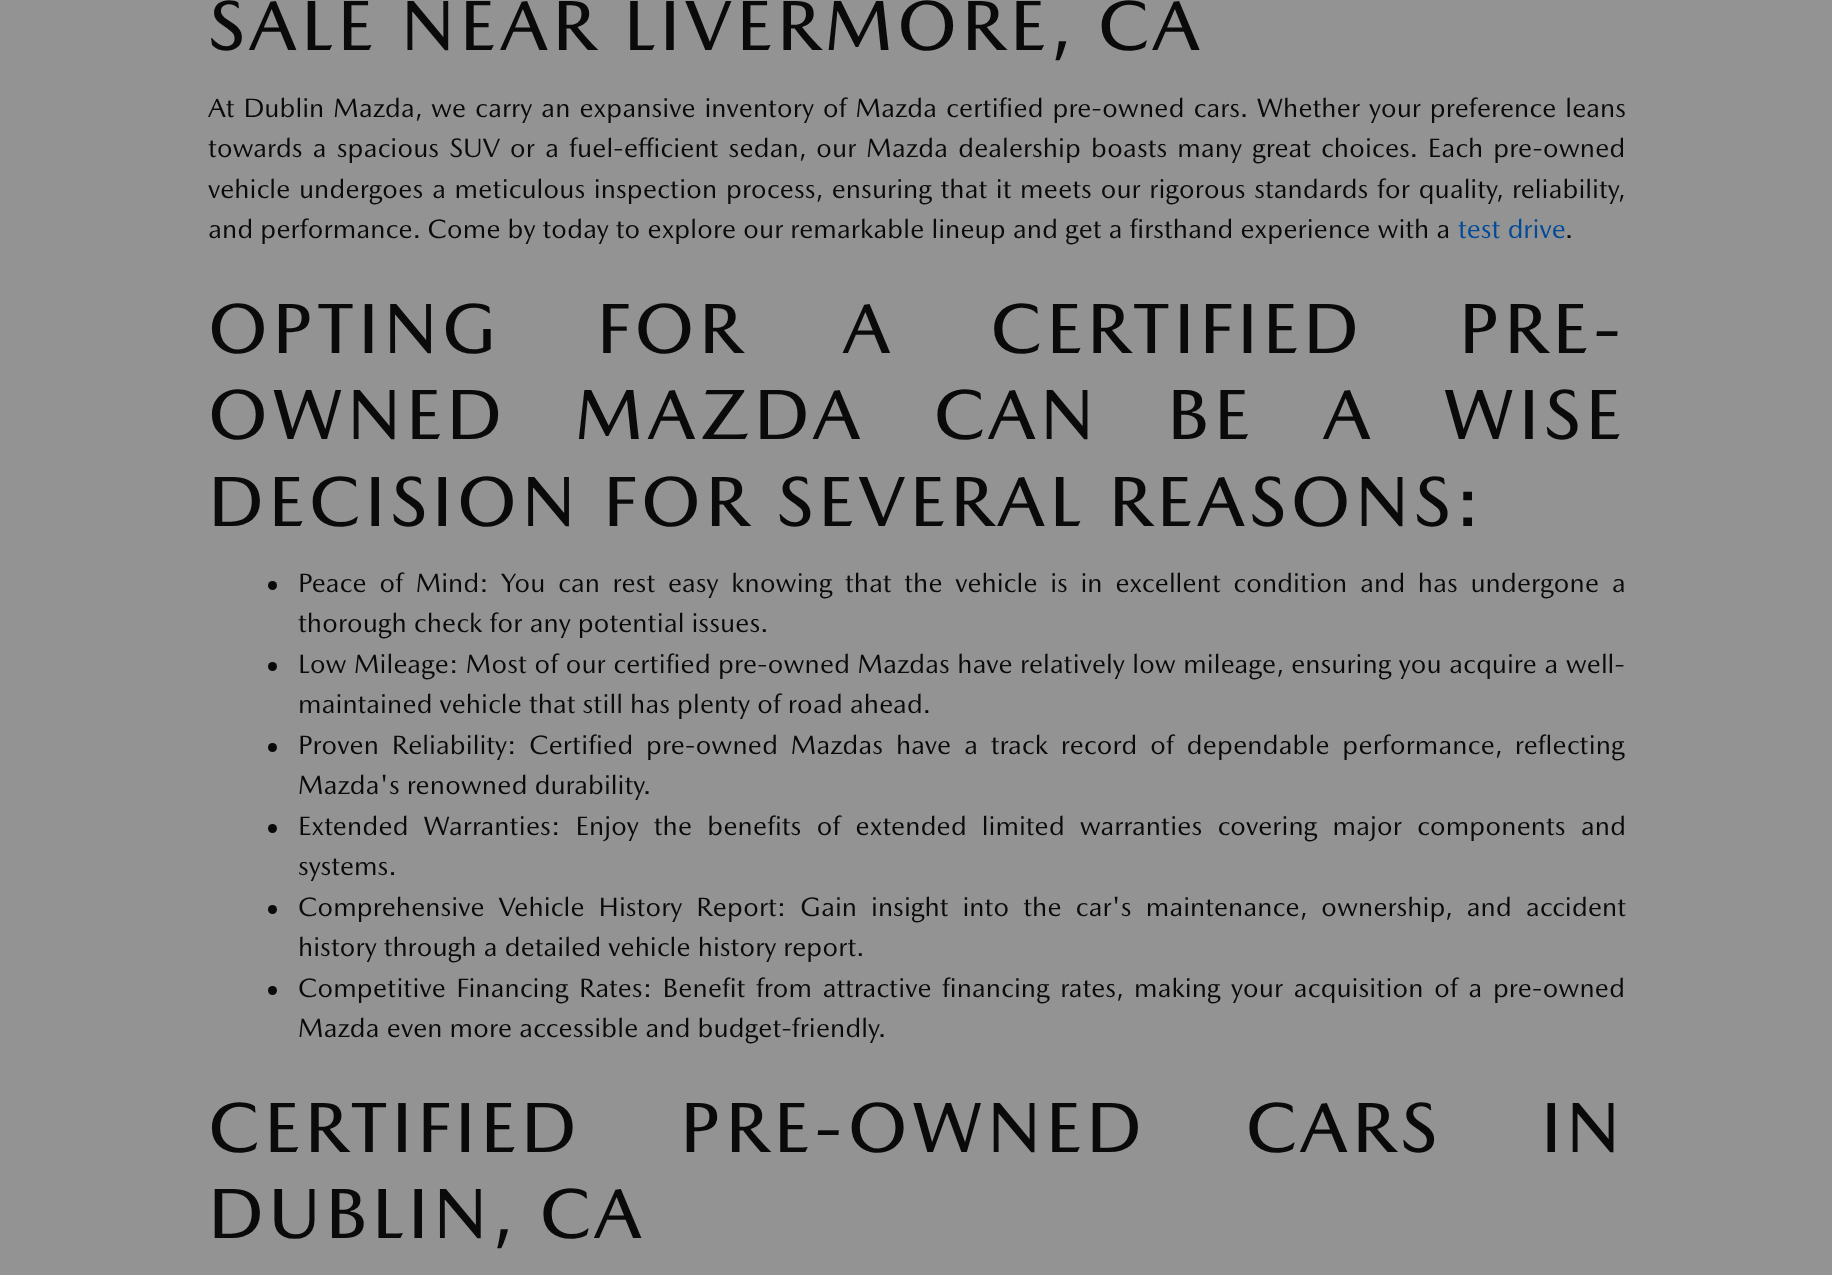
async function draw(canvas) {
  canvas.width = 1832;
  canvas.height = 1275;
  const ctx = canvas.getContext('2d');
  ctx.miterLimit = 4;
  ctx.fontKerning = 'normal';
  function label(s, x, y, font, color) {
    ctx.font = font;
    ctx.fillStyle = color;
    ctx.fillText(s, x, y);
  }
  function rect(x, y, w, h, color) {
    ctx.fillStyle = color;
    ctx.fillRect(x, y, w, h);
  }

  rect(0, 0, 1832, 1275, '#939393');
  ctx.letterSpacing = '4.5px';
  label('SALE NEAR LIVERMORE, CA', 208, 50, '500 72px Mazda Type', '#0a0a0a');
  ctx.letterSpacing = '0px';
  ctx.wordSpacing = '1.9px';
  label('At Dublin Mazda, we carry an expansive inventory of Mazda certified pre-owned cars. Whether your preference leans', 208, 117, '27px Mazda Type', '#0a0a0a');
  ctx.wordSpacing = '3px';
  label('towards a spacious SUV or a fuel-efficient sedan, our Mazda dealership boasts many great choices. Each pre-owned', 208, 157, '27px Mazda Type', '#0a0a0a');
  ctx.wordSpacing = '1.6px';
  label('vehicle undergoes a meticulous inspection process, ensuring that it meets our rigorous standards for quality, reliability,', 208, 198, '27px Mazda Type', '#0a0a0a');
  ctx.wordSpacing = '0px';
  label('and performance. Come by today to explore our remarkable lineup and get a firsthand experience with a', 208, 238, '27px Mazda Type', '#0a0a0a');
  label('test drive', 1458, 238, '27px Mazda Type', '#004a99');
  label('.', 1565, 238, '27px Mazda Type', '#0a0a0a');
  ctx.letterSpacing = '4.5px';
  ctx.wordSpacing = '72.5px';
  label('OPTING FOR A CERTIFIED PRE-', 208, 353, '500 72px Mazda Type', '#0a0a0a');
  ctx.wordSpacing = '45.5px';
  label('OWNED MAZDA CAN BE A WISE', 208, 439, '500 72px Mazda Type', '#0a0a0a');
  ctx.wordSpacing = '0px';
  label('DECISION FOR SEVERAL REASONS:', 208, 526, '500 72px Mazda Type', '#0a0a0a');
  ctx.beginPath();
  ctx.arc(272.5, 585.5, 4.5, 0, 2 * Math.PI);
  ctx.fill();
  ctx.letterSpacing = '0px';
  ctx.wordSpacing = '5.6px';
  label('Peace of Mind: You can rest easy knowing that the vehicle is in excellent condition and has undergone a', 298, 592, '27px Mazda Type', '#0a0a0a');
  ctx.wordSpacing = '0px';
  label('thorough check for any potential issues.', 298, 632, '27px Mazda Type', '#0a0a0a');
  ctx.beginPath();
  ctx.arc(272.5, 666.5, 4.5, 0, 2 * Math.PI);
  ctx.fill();
  ctx.wordSpacing = '0.4px';
  label('Low Mileage: Most of our certified pre-owned Mazdas have relatively low mileage, ensuring you acquire a well-', 298, 673, '27px Mazda Type', '#0a0a0a');
  ctx.wordSpacing = '0px';
  label('maintained vehicle that still has plenty of road ahead.', 298, 713, '27px Mazda Type', '#0a0a0a');
  ctx.beginPath();
  ctx.arc(272.5, 747.5, 4.5, 0, 2 * Math.PI);
  ctx.fill();
  ctx.wordSpacing = '5.75px';
  label('Proven Reliability: Certified pre-owned Mazdas have a track record of dependable performance, reflecting', 298, 754, '27px Mazda Type', '#0a0a0a');
  ctx.wordSpacing = '0px';
  label('Mazda\'s renowned durability.', 298, 794, '27px Mazda Type', '#0a0a0a');
  ctx.beginPath();
  ctx.arc(272.5, 828.5, 4.5, 0, 2 * Math.PI);
  ctx.fill();
  ctx.wordSpacing = '8.1px';
  label('Extended Warranties: Enjoy the benefits of extended limited warranties covering major components and', 298, 835, '27px Mazda Type', '#0a0a0a');
  ctx.wordSpacing = '0px';
  label('systems.', 298, 875, '27px Mazda Type', '#0a0a0a');
  ctx.beginPath();
  ctx.arc(272.5, 909.5, 4.5, 0, 2 * Math.PI);
  ctx.fill();
  ctx.wordSpacing = '7px';
  label('Comprehensive Vehicle History Report: Gain insight into the car\'s maintenance, ownership, and accident', 298, 916, '27px Mazda Type', '#0a0a0a');
  ctx.wordSpacing = '0px';
  label('history through a detailed vehicle history report.', 298, 956, '27px Mazda Type', '#0a0a0a');
  ctx.beginPath();
  ctx.arc(272.5, 990.5, 4.5, 0, 2 * Math.PI);
  ctx.fill();
  ctx.wordSpacing = '3.5px';
  label('Competitive Financing Rates: Benefit from attractive financing rates, making your acquisition of a pre-owned', 298, 997, '27px Mazda Type', '#0a0a0a');
  ctx.wordSpacing = '0px';
  label('Mazda even more accessible and budget-friendly.', 298, 1037, '27px Mazda Type', '#0a0a0a');
  ctx.letterSpacing = '4.5px';
  ctx.wordSpacing = '76px';
  label('CERTIFIED PRE-OWNED CARS IN', 208, 1152, '500 72px Mazda Type', '#0a0a0a');
  ctx.wordSpacing = '0px';
  label('DUBLIN, CA', 208, 1238, '500 72px Mazda Type', '#0a0a0a');
}

draw(document.querySelector('canvas'));
